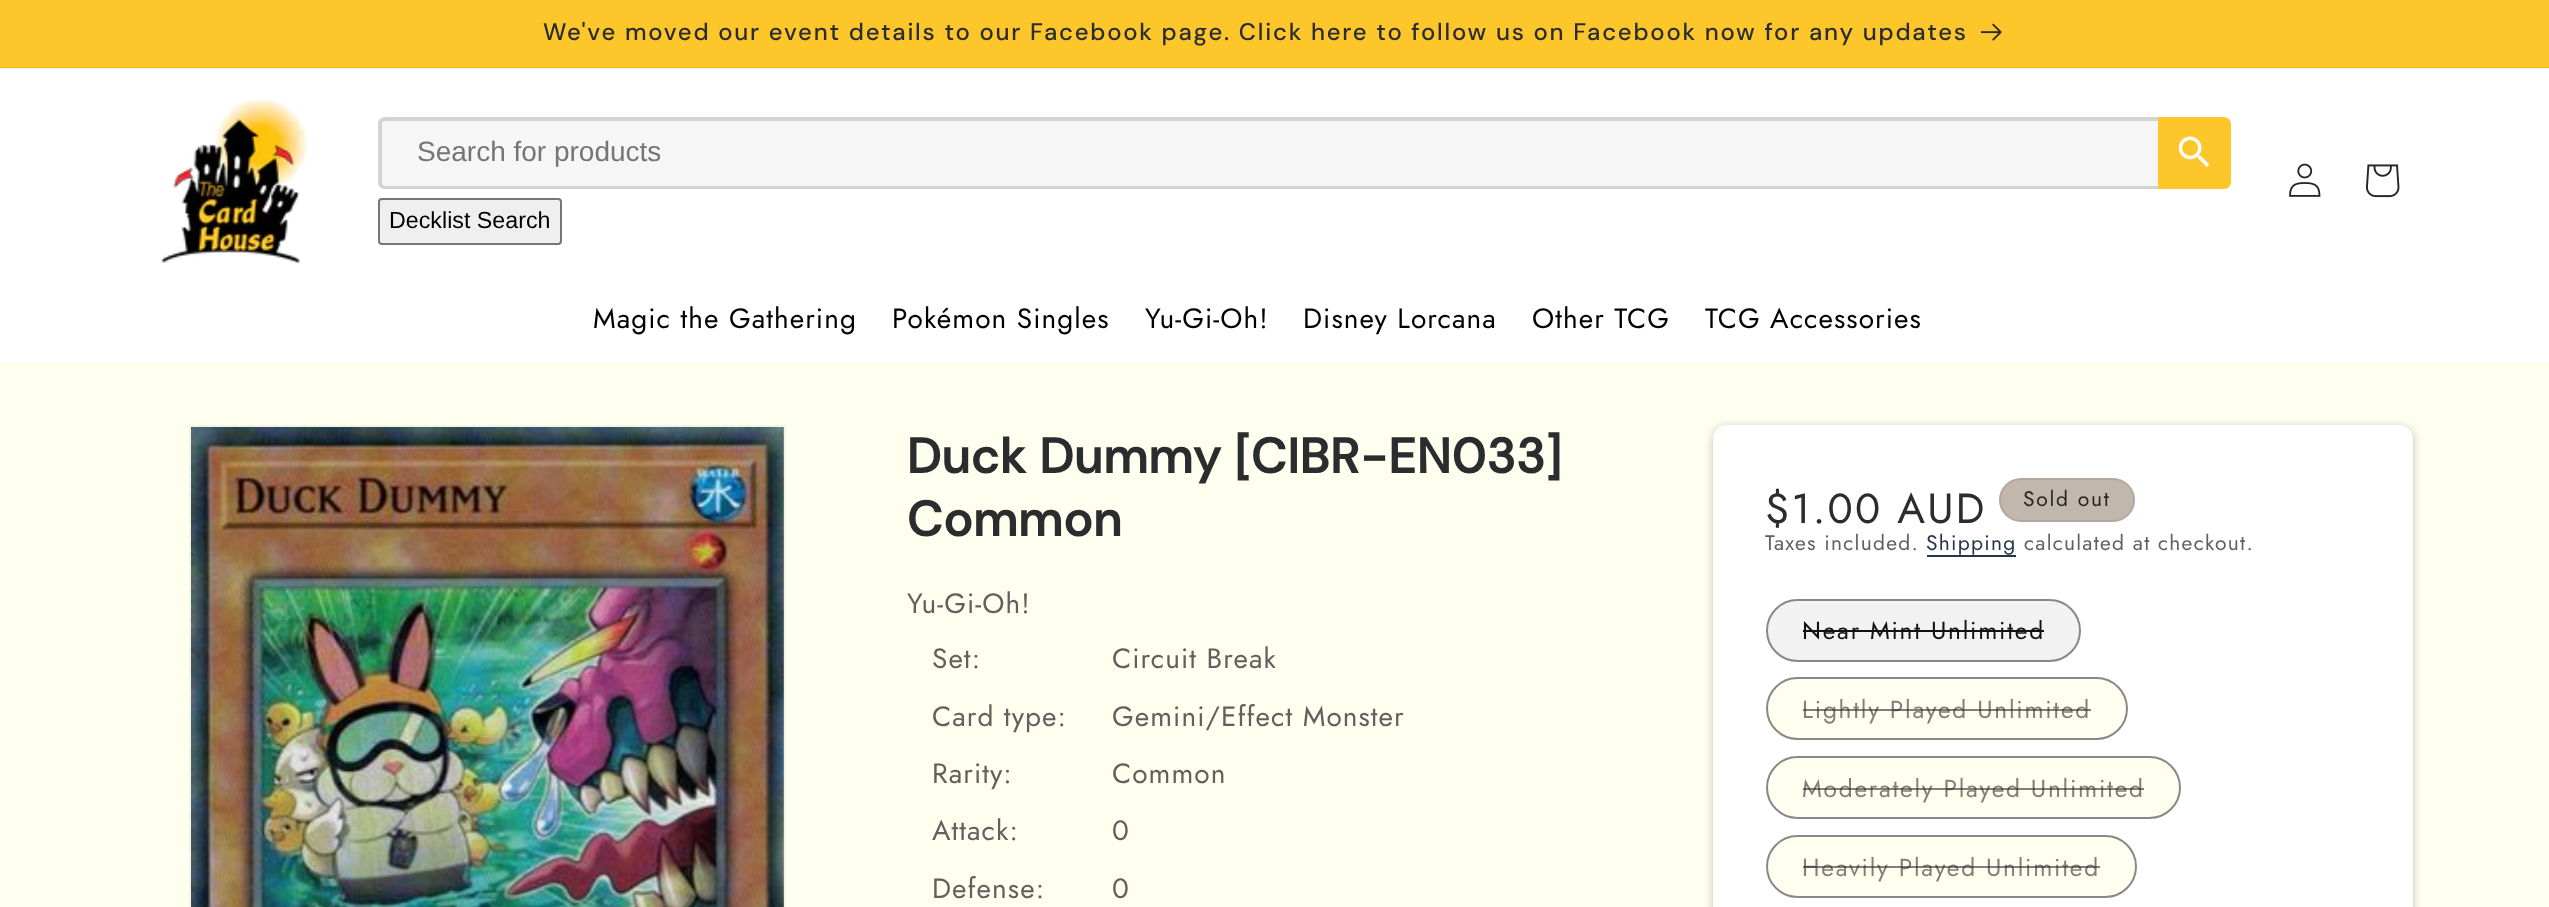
async function draw(canvas) {
  canvas.width = 2549;
  canvas.height = 907;
  const ctx = canvas.getContext('2d');
  ctx.miterLimit = 4;
  ctx.fontKerning = 'normal';
  function label(s, x, y, font, color) {
    ctx.font = font;
    ctx.fillStyle = color;
    ctx.fillText(s, x, y);
  }
  function rect(x, y, w, h, color) {
    ctx.fillStyle = color;
    ctx.fillRect(x, y, w, h);
  }
  function roundedRect(x, y, w, h, r, color) {
    ctx.fillStyle = color;
    ctx.beginPath();
    ctx.roundRect(x, y, w, h, r);
    ctx.fill();
  }
  async function image(src, x, y, w, h) {
    const img = new Image();
    img.src = src;
    await img.decode();
    ctx.drawImage(img, x, y, w, h);
  }
  let path;

  rect(0, 0, 2549, 907, '#fdc62b');
  rect(0, 67, 2549, 1, '#ecba2b');
  ctx.letterSpacing = '1.75px';
  label('We\'ve moved our event details to our Facebook page. Click here to follow us on Facebook now for any updates', 543, 40, '500 23.9px DM Sans', '#2b2c2d');
  await image('assets/img1.png', 1981, 23, 21, 18);
  rect(0, 69, 2549, 293, '#fff');
  rect(0, 68, 2549, 1, '#eee');
  await image('assets/img2.png', 160, 98, 148, 165);
  ctx.fillStyle = '#f6f6f6';
  ctx.beginPath();
  ctx.roundRect(378, 117, 1780, 72, [7, 0, 0, 7]);
  ctx.fill();
  ctx.fillStyle = '#d3d3d3';
  path = new Path2D('M385 117H2158V189H385C381 189 378 186 378 182V124C378 120 381 117 385 117ZM385 121H2158V186H385C383 186 382 184 382 182V124C382 122 383 121 385 121Z');
  ctx.fill(path, 'evenodd');
  ctx.letterSpacing = '0px';
  label('Search for products', 417, 161, '28px Liberation Sans', '#757575');
  ctx.fillStyle = '#fdc62b';
  ctx.beginPath();
  ctx.roundRect(2158, 117, 73, 72, [0, 7, 7, 0]);
  ctx.fill();
  await image('assets/img3.png', 2178, 136, 32, 31);
  ctx.fillStyle = '#efefef';
  ctx.beginPath();
  ctx.roundRect(379, 199, 182, 45, 3);
  ctx.fill();
  ctx.strokeStyle = '#767676';
  ctx.lineWidth = 2;
  ctx.stroke();
  label('Decklist Search', 389, 228, '23.25px Liberation Sans', '#000');
  await image('assets/img4.png', 2289, 163, 32, 34);
  await image('assets/img5.png', 2366, 164, 34, 34);
  ctx.letterSpacing = '1.05px';
  label('Magic the Gathering', 593, 328, '28px Jost', '#000');
  label('Pokémon Singles', 892, 328, '28px Jost', '#000');
  label('Yu-Gi-Oh!', 1145, 328, '28px Jost', '#000');
  label('Disney Lorcana', 1303, 328, '28px Jost', '#000');
  label('Other TCG', 1532, 328, '28px Jost', '#000');
  label('TCG Accessories', 1705, 328, '28px Jost', '#000');
  rect(0, 362, 2549, 545, '#ffffef');
  ctx.strokeStyle = '#f4f4e5';
  ctx.strokeRect(190, 426, 595, 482);
  await image('assets/img6.png', 191, 427, 593, 480);
  ctx.letterSpacing = '1.1px';
  label('Duck Dummy [CIBR-EN033]', 907, 473, 'bold 49px DM Sans', '#2b2c2d');
  label('Common', 907, 536, 'bold 49px DM Sans', '#2b2c2d');
  ctx.letterSpacing = '1.05px';
  label('Yu-Gi-Oh!', 907, 613, '28px Jost', '#60615e');
  label('Set:', 932, 668, '28px Jost', '#60615e');
  label('Circuit Break', 1112, 668, '28px Jost', '#60615e');
  label('Card type:', 932, 726, '28px Jost', '#60615e');
  label('Gemini/Effect Monster', 1112, 726, '28px Jost', '#60615e');
  label('Rarity:', 932, 783, '28px Jost', '#60615e');
  label('Common', 1112, 783, '28px Jost', '#60615e');
  label('Attack:', 932, 840, '28px Jost', '#60615e');
  label('0', 1112, 840, '28px Jost', '#60615e');
  label('Defense:', 932, 898, '28px Jost', '#60615e');
  label('0', 1112, 898, '28px Jost', '#60615e');
  ctx.fillStyle = '#00000040';
  ctx.filter = 'blur(5px)';
  ctx.beginPath();
  ctx.roundRect(1713, 427, 700, 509, 14);
  ctx.fill();
  ctx.filter = 'none';
  roundedRect(1713, 425, 700, 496, 14, '#fff');
  ctx.letterSpacing = '2.25px';
  label('$1.00 AUD', 1765, 523, '42px Jost', '#2b2c2d');
  roundedRect(1999, 478, 136, 44, 22, '#c2b7ac');
  ctx.beginPath();
  ctx.roundRect(2000, 479, 134, 42, 21);
  ctx.strokeStyle = '#2626261a';
  ctx.stroke();
  ctx.letterSpacing = '1.75px';
  label('Sold out', 2023, 506, '21px Jost', '#262626');
  ctx.letterSpacing = '1.25px';
  label('Taxes included.', 1765, 550, '21px Jost', '#60615e');
  label('Shipping', 1926, 550, '21px Jost', '#263548');
  rect(1927, 555, 89, 2, '#263548');
  label('calculated at checkout.', 2024, 550, '21px Jost', '#60615e');
  ctx.fillStyle = '#f2f2f2';
  ctx.beginPath();
  ctx.roundRect(1767, 600, 313, 61, 30.5);
  ctx.fill();
  ctx.strokeStyle = '#888';
  ctx.stroke();
  ctx.letterSpacing = '1.75px';
  label('Near Mint Unlimited', 1802, 639, '24.5px Jost', '#121212');
  rect(1803, 630, 241, 2, '#121212');
  ctx.fillStyle = '#ffffef';
  ctx.beginPath();
  ctx.roundRect(1767, 678, 360, 61, 30.5);
  ctx.fill();
  ctx.stroke();
  label('Lightly Played Unlimited', 1802, 718, '24.5px Jost', '#80807b');
  rect(1803, 709, 288, 2, '#2b2c2d99');
  ctx.fillStyle = '#ffffef';
  ctx.beginPath();
  ctx.roundRect(1767, 757, 413, 61, 30.5);
  ctx.fill();
  ctx.stroke();
  label('Moderately Played Unlimited', 1802, 797, '24.5px Jost', '#80807b');
  rect(1803, 788, 341, 2, '#2b2c2d99');
  ctx.fillStyle = '#ffffef';
  ctx.beginPath();
  ctx.roundRect(1767, 836, 369, 61, 30.5);
  ctx.fill();
  ctx.stroke();
  label('Heavily Played Unlimited', 1802, 876, '24.5px Jost', '#80807b');
  rect(1803, 866, 297, 2, '#2b2c2d99');
}

draw(document.querySelector('canvas'));
